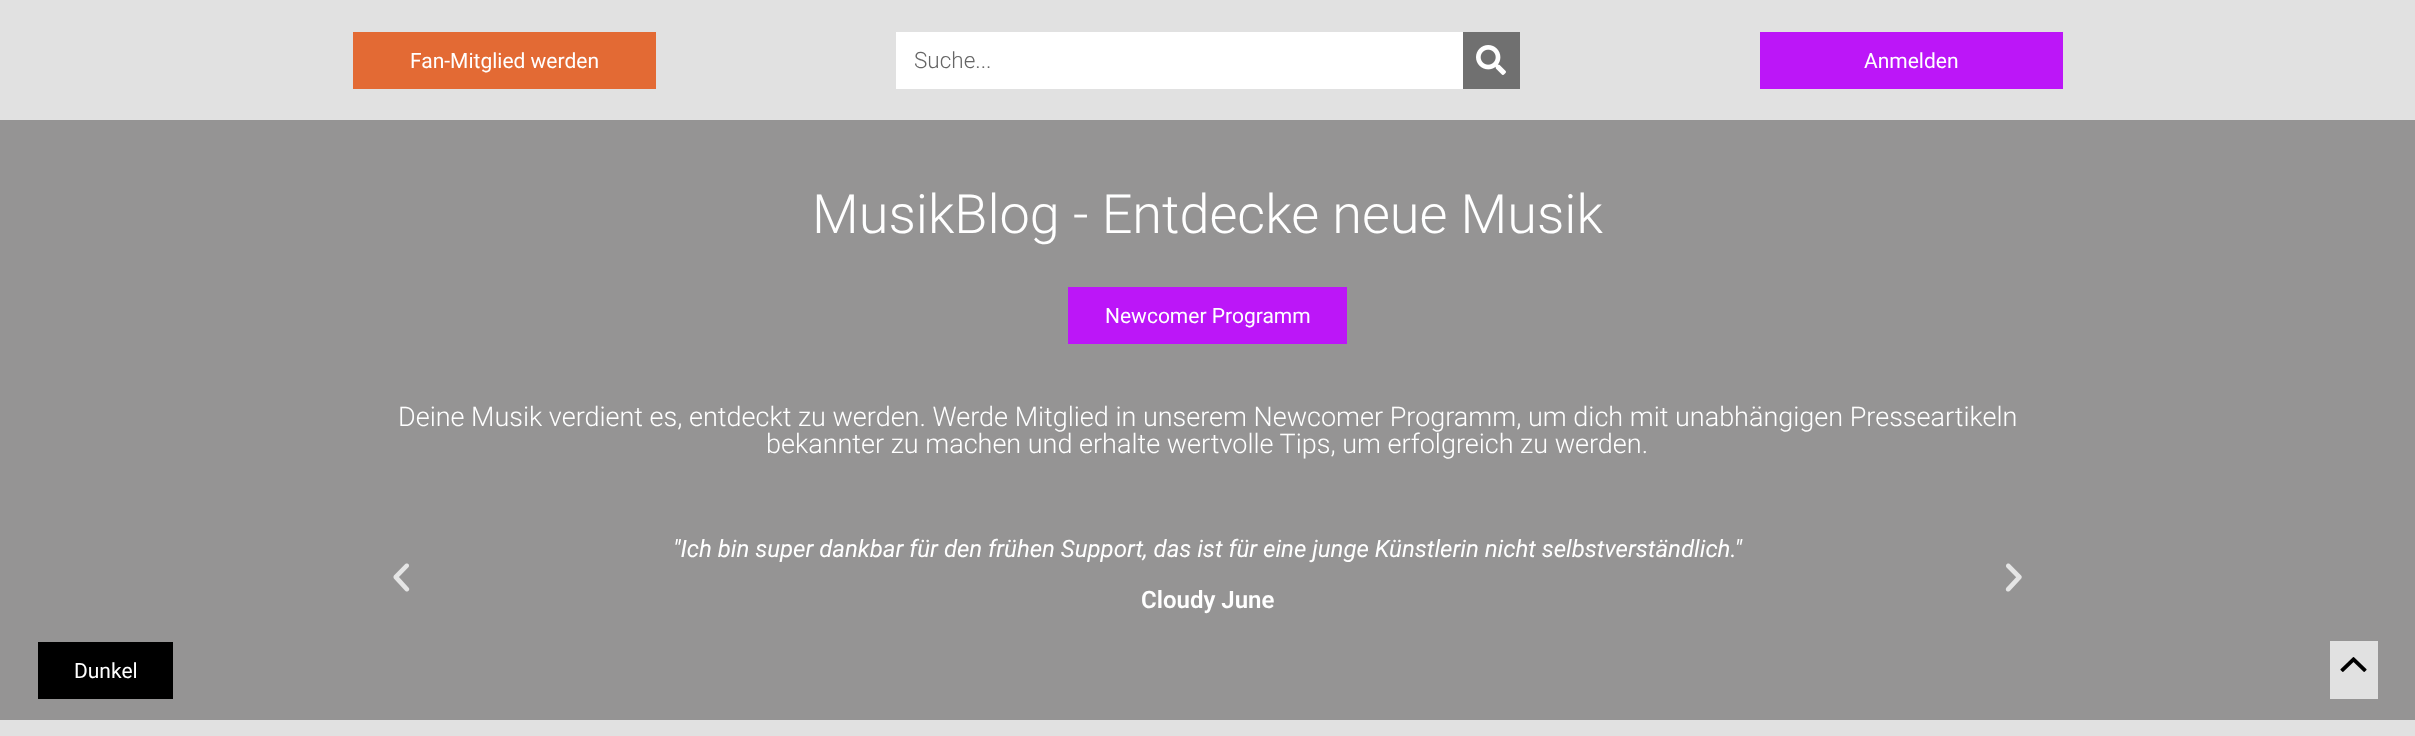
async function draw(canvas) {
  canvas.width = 2415;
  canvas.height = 736;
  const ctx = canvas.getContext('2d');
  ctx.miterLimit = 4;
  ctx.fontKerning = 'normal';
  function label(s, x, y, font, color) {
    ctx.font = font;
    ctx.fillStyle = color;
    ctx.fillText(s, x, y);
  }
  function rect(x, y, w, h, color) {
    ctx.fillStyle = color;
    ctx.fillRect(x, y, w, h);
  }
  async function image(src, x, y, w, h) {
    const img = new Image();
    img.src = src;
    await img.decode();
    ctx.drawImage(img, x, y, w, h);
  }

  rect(0, 0, 2415, 736, '#e1e1e1');
  rect(353, 32, 303, 57, '#e36a34');
  label('Fan-Mitglied werden', 410, 68, '21px Roboto', '#fff');
  rect(896, 32, 567, 57, '#fff');
  label('Suche...', 914, 68, '300 22.5px Roboto', '#666');
  rect(1463, 32, 57, 57, '#707070');
  await image('assets/img1.png', 1476, 45, 30, 30);
  rect(1760, 32, 303, 57, '#bc16f8');
  label('Anmelden', 1864, 68, '21px Roboto', '#fff');
  rect(0, 120, 2415, 600, '#959494');
  label('MusikBlog - Entdecke neue Musik', 812, 233, '300 54px Roboto', '#fff');
  rect(1068, 287, 279, 57, '#bc16f8');
  label('Newcomer Programm', 1105, 323, '21px Roboto', '#fff');
  label('Deine Musik verdient es, entdeckt zu werden. Werde Mitglied in unserem Newcomer Programm, um dich mit unabhängigen Presseartikeln', 398, 426, '300 27px Roboto', '#fff');
  label('bekannter zu machen und erhalte wertvolle Tips, um erfolgreich zu werden.', 766, 453, '300 27px Roboto', '#fff');
  await image('assets/img2.png', 393, 563, 17, 29);
  label('"Ich bin super dankbar für den frühen Support, das ist für eine junge Künstlerin nicht selbstverständlich."', 673, 557, 'italic 24px Roboto', '#fff');
  label('Cloudy June', 1141, 608, '600 24px Roboto', '#fff');
  await image('assets/img3.png', 2005, 563, 17, 29);
  rect(38, 642, 135, 57, '#000');
  label('Dunkel', 74, 678, '21px Roboto', '#fff');
  rect(2330, 641, 48, 58, '#e1e1e1');
  await image('assets/img4.png', 2340, 657, 27, 15);
}

draw(document.querySelector('canvas'));
